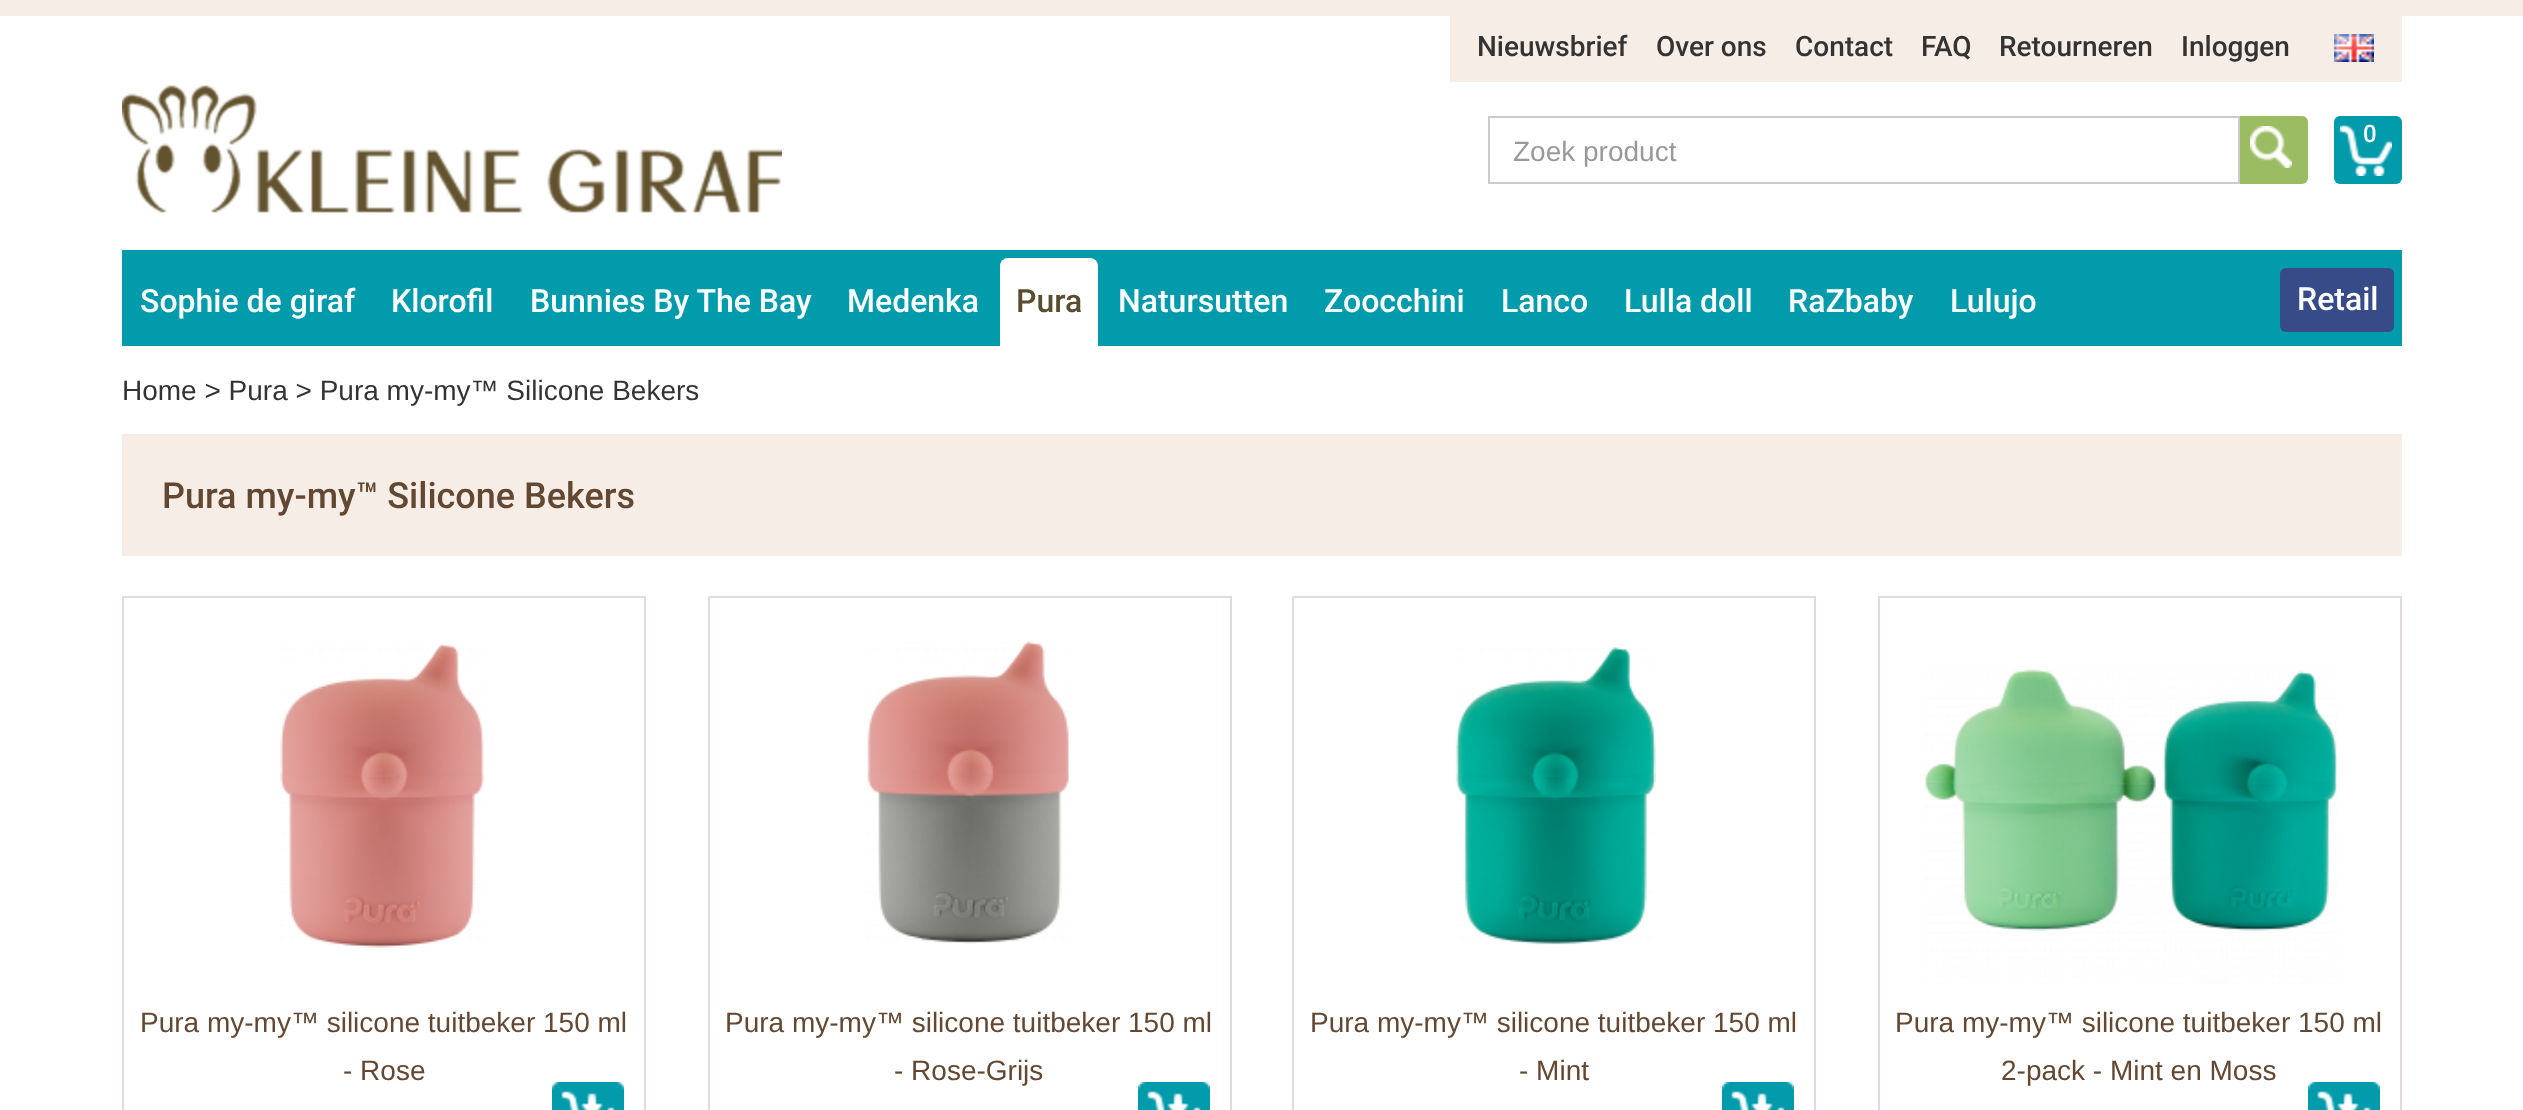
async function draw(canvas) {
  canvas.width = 2523;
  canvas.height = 1110;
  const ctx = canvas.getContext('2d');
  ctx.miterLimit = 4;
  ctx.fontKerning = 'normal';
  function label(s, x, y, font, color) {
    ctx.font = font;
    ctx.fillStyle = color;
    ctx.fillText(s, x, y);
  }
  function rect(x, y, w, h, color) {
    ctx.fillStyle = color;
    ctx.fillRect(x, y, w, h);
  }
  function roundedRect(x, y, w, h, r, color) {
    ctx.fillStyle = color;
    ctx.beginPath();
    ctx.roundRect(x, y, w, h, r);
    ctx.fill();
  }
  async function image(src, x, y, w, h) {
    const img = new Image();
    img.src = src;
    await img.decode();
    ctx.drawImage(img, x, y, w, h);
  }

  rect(0, 0, 2523, 1110, '#fff');
  rect(0, 0, 2523, 16, '#f6ede6');
  rect(1450, 16, 952, 66, '#f6ede6');
  label('Nieuwsbrief', 1477, 56, '500 28px Roboto', '#333');
  label('Over ons', 1656, 56, '500 28px Roboto', '#333');
  label('Contact', 1795, 56, '500 28px Roboto', '#333');
  label('FAQ', 1921, 56, '500 28px Roboto', '#333');
  label('Retourneren', 1999, 56, '500 28px Roboto', '#333');
  label('Inloggen', 2181, 56, '500 28px Roboto', '#333');
  await image('assets/img1.png', 2334, 34, 40, 28);
  await image('assets/img2.png', 122, 85, 660, 128);
  roundedRect(2334, 116, 68, 68, 6, '#019bab');
  await image('assets/img3.png', 2340, 125, 52, 51);
  label('0', 2363, 142, '500 24px Roboto', '#fff');
  ctx.fillStyle = '#9bbc62';
  ctx.beginPath();
  ctx.roundRect(2238, 116, 70, 68, [0, 6, 6, 0]);
  ctx.fill();
  ctx.strokeStyle = '#ccc';
  ctx.lineWidth = 2;
  ctx.strokeRect(1489, 117, 750, 66);
  label('Zoek product', 1513, 161, '28px Liberation Sans', '#999');
  await image('assets/img4.png', 2250, 126, 42, 42);
  rect(122, 250, 2280, 96, '#029bab');
  label('Sophie de giraf', 140, 312, '500 32px Roboto', '#fff');
  label('Klorofil', 391, 312, '500 32px Roboto', '#fff');
  label('Bunnies By The Bay', 530, 312, '500 32px Roboto', '#fff');
  label('Medenka', 847, 312, '500 32px Roboto', '#fff');
  ctx.beginPath();
  ctx.roundRect(1000, 258, 98, 88, [8, 8, 0, 0]);
  ctx.fill();
  label('Pura', 1016, 312, '500 32px Roboto', '#584e2f');
  label('Natursutten', 1118, 312, '500 32px Roboto', '#fff');
  label('Zoocchini', 1324, 312, '500 32px Roboto', '#fff');
  label('Lanco', 1501, 312, '500 32px Roboto', '#fff');
  label('Lulla doll', 1624, 312, '500 32px Roboto', '#fff');
  label('RaZbaby', 1788, 312, '500 32px Roboto', '#fff');
  label('Lulujo', 1950, 312, '500 32px Roboto', '#fff');
  roundedRect(2280, 268, 114, 64, 6, '#374b88');
  label('Retail', 2297, 310, '500 32px Roboto', '#fff');
  label('Home > Pura > Pura my-my™ Silicone Bekers', 122, 400, '28px Liberation Sans', '#333');
  rect(122, 434, 2280, 122, '#f6ede6');
  label('Pura my-my™ Silicone Bekers', 162, 508, '500 36px Roboto', '#624832');
  ctx.strokeStyle = '#e1dbdb';
  ctx.strokeRect(123, 597, 522, 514);
  await image('assets/img5.png', 280, 643, 205, 305);
  label('Pura my-my™ silicone tuitbeker 150 ml', 140, 1032, '28px Liberation Sans', '#624832');
  label('- Rose', 343, 1080, '28px Liberation Sans', '#624832');
  await image('assets/img6.png', 552, 1082, 72, 28);
  ctx.strokeRect(709, 597, 522, 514);
  await image('assets/img7.png', 867, 641, 203, 303);
  label('Pura my-my™ silicone tuitbeker 150 ml', 725, 1032, '28px Liberation Sans', '#624832');
  label('- Rose-Grijs', 894, 1080, '28px Liberation Sans', '#624832');
  await image('assets/img6.png', 1138, 1082, 72, 28);
  ctx.strokeRect(1293, 597, 522, 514);
  await image('assets/img8.png', 1455, 647, 201, 298);
  label('Pura my-my™ silicone tuitbeker 150 ml', 1310, 1032, '28px Liberation Sans', '#624832');
  label('- Mint', 1519, 1080, '28px Liberation Sans', '#624832');
  await image('assets/img6.png', 1722, 1082, 72, 28);
  ctx.strokeRect(1879, 597, 522, 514);
  await image('assets/img9.png', 1924, 669, 414, 315);
  label('Pura my-my™ silicone tuitbeker 150 ml', 1895, 1032, '28px Liberation Sans', '#624832');
  label('2-pack - Mint en Moss', 2001, 1080, '28px Liberation Sans', '#624832');
  await image('assets/img6.png', 2308, 1082, 72, 28);
}

draw(document.querySelector('canvas'));
